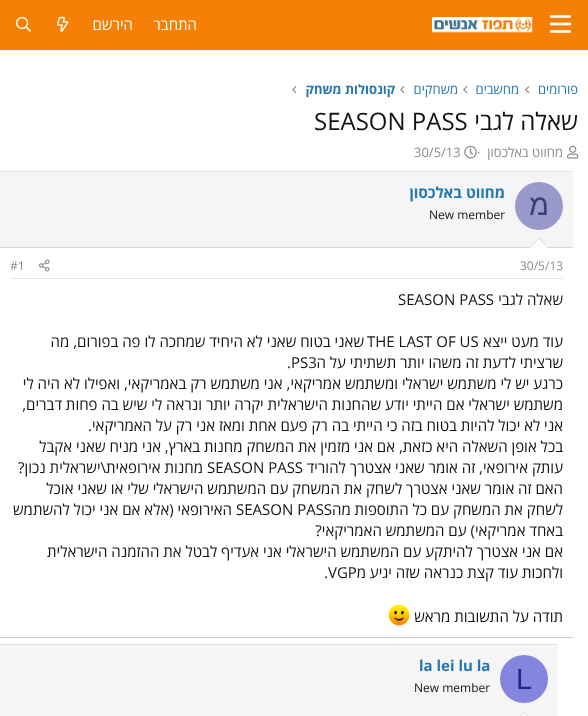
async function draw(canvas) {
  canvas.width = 588;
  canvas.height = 716;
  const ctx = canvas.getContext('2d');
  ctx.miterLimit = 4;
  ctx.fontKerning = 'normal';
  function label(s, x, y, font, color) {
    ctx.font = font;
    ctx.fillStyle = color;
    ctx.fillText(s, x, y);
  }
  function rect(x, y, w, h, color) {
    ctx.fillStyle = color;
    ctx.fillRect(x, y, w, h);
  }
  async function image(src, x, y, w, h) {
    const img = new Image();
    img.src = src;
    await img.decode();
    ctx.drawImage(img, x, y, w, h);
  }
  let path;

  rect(0, 0, 588, 716, '#fff');
  rect(0, 0, 588, 50, '#f68005');
  await image('assets/img1.png', 550, 15, 21, 18);
  await image('assets/img2.png', 432, 17, 101, 16);
  ctx.direction = 'rtl';
  label('התחבר', 197, 30, '15px Open Sans', '#fefefe');
  label('הירשם', 133, 30, '15px Open Sans', '#fefefe');
  await image('assets/img3.png', 57, 16, 12, 16);
  await image('assets/img4.png', 16, 16, 15, 16);
  label('פורומים', 578, 94, '13px Open Sans', '#2577b1');
  await image('assets/img5.png', 525, 86, 5, 8);
  label('מחשבים', 519, 94, '13px Open Sans', '#2577b1');
  await image('assets/img5.png', 463, 86, 5, 8);
  label('משחקים', 458, 94, '13px Open Sans', '#2577b1');
  await image('assets/img5.png', 400, 86, 5, 8);
  label('קונסולות משחק', 395, 94, 'bold 13px Open Sans', '#2577b1');
  await image('assets/img5.png', 292, 86, 5, 8);
  label('שאלה לגבי', 578, 130, '24px Open Sans', '#141414');
  ctx.direction = 'ltr';
  label('SEASON PASS', 314, 130, '24px Open Sans', '#141414');
  await image('assets/img6.png', 567, 145, 12, 14);
  ctx.direction = 'rtl';
  label('מחווט באלכסון', 563, 157, '13px Open Sans', '#8c8c8c');
  ctx.direction = 'ltr';
  label('·', 477, 157, '13px Open Sans', '#8c8c8c');
  await image('assets/img7.png', 464, 145, 13, 14);
  label('30/5/13', 414, 157, '13px Open Sans', '#8c8c8c');
  rect(0, 171, 573, 1, '#dfdfdf');
  rect(0, 637, 573, 1, '#cbcbcb');
  rect(0, 172, 573, 75, '#f5f5f5');
  rect(0, 247, 573, 1, '#d8d8d8');
  ctx.fillStyle = '#99c';
  ctx.beginPath();
  ctx.arc(539, 206, 24, 0, 2 * Math.PI);
  ctx.fill();
  ctx.direction = 'rtl';
  label('מ', 549, 215, '29px Liberation Sans', '#3c3c77');
  label('מחווט באלכסון', 505, 198, 'bold 15px Open Sans', '#2577b1');
  ctx.direction = 'ltr';
  label('New member', 429, 219, '12px Open Sans', '#141414');
  ctx.fillStyle = '#d8d8d8';
  path = new Path2D('M549 248H529L539 238Z');
  ctx.fill(path);
  ctx.fillStyle = '#fefefe';
  path = new Path2D('M548 248H530L539 239Z');
  ctx.fill(path);
  rect(10, 278, 553, 1, '#e7e7e7');
  label('30/5/13', 520, 270, '12px Open Sans', '#8c8c8c');
  await image('assets/img8.png', 39, 259, 11, 13);
  label('#1', 10, 270, '12px Open Sans', '#8c8c8c');
  ctx.direction = 'rtl';
  label('שאלה לגבי', 563, 305, '15px Open Sans', '#141414');
  ctx.direction = 'ltr';
  label('SEASON PASS', 398, 305, '15px Open Sans', '#141414');
  ctx.direction = 'rtl';
  label('עוד מעט ייצא', 563, 347, '15px Open Sans', '#141414');
  ctx.direction = 'ltr';
  label('THE LAST OF US', 367, 347, '15px Open Sans', '#141414');
  ctx.direction = 'rtl';
  label('שאני בטוח שאני לא היחיד שמחכה לו פה בפורום, מה', 364, 347, '15px Open Sans', '#141414');
  label('שרציתי לדעת זה משהו יותר תשתיתי על ה', 563, 368, '15px Open Sans', '#141414');
  ctx.direction = 'ltr';
  label('.PS3', 287, 368, '15px Open Sans', '#141414');
  ctx.direction = 'rtl';
  label('כרגע יש לי משתמש ישראלי ומשתמש אמריקאי, אני משתמש רק באמריקאי, ואפילו לא היה לי', 563, 389, '15px Open Sans', '#141414');
  label('משתמש ישראלי אם הייתי יודע שהחנות הישראלית יקרה יותר ונראה לי שיש בה פחות דברים,', 563, 410, '15px Open Sans', '#141414');
  label('אני לא יכול להיות בטוח בזה כי הייתי בה רק פעם אחת ומאז אני רק על האמריקאי.', 563, 431, '15px Open Sans', '#141414');
  label('בכל אופן השאלה היא כזאת, אם אני מזמין את המשחק מחנות בארץ, אני מניח שאני אקבל', 563, 452, '15px Open Sans', '#141414');
  label('עותק אירופאי, זה אומר שאני אצטרך להוריד', 563, 473, '15px Open Sans', '#141414');
  ctx.direction = 'ltr';
  label('SEASON PASS', 207, 473, '15px Open Sans', '#141414');
  ctx.direction = 'rtl';
  label('מחנות אירופאית\\ישראלית נכון?', 203, 473, '15px Open Sans', '#141414');
  label('האם זה אומר שאני אצטרך לשחק את המשחק עם המשתמש הישראלי שלי או שאני אוכל', 563, 494, '15px Open Sans', '#141414');
  label('לשחק את המשחק עם כל התוספות מה', 563, 515, '15px Open Sans', '#141414');
  ctx.direction = 'ltr';
  label('SEASON PASS', 236, 515, '15px Open Sans', '#141414');
  ctx.direction = 'rtl';
  label('האירופאי (אלא אם אני יכול להשתמש', 232, 515, '15px Open Sans', '#141414');
  label('באחד אמריקאי) עם המשתמש האמריקאי?', 563, 536, '15px Open Sans', '#141414');
  label('אם אני אצטרך להיתקע עם המשתמש הישראלי אני אעדיף לבטל את ההזמנה הישראלית', 563, 557, '15px Open Sans', '#141414');
  label('ולחכות עוד קצת כנראה שזה יגיע מ', 563, 578, '15px Open Sans', '#141414');
  ctx.direction = 'ltr';
  label('.VGP', 324, 578, '15px Open Sans', '#141414');
  ctx.direction = 'rtl';
  label('תודה על התשובות מראש', 563, 622, '15px Open Sans', '#141414');
  await image('assets/img9.png', 388, 604, 22, 22);
  rect(0, 644, 558, 1, '#dfdfdf');
  rect(0, 645, 558, 71, '#f5f5f5');
  ctx.fillStyle = '#8585e0';
  ctx.beginPath();
  ctx.arc(524, 679, 24, 0, 2 * Math.PI);
  ctx.fill();
  ctx.direction = 'ltr';
  label('L', 516, 689, '29px Liberation Sans', '#24248f');
  label('la lei lu la', 419, 671, 'bold 15px Open Sans', '#2577b1');
  label('New member', 414, 692, '12px Open Sans', '#141414');
  ctx.fillStyle = '#d8d8d8';
  path = new Path2D('M534 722H514L524 712Z');
  ctx.fill(path);
  ctx.fillStyle = '#fefefe';
  path = new Path2D('M533 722H515L524 713Z');
  ctx.fill(path);
}

draw(document.querySelector('canvas'));
